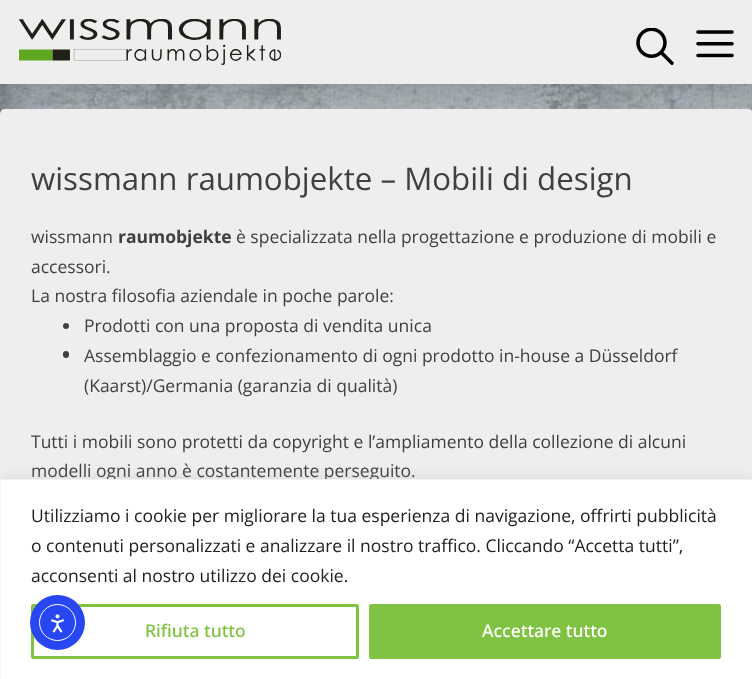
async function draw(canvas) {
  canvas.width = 752;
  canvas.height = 679;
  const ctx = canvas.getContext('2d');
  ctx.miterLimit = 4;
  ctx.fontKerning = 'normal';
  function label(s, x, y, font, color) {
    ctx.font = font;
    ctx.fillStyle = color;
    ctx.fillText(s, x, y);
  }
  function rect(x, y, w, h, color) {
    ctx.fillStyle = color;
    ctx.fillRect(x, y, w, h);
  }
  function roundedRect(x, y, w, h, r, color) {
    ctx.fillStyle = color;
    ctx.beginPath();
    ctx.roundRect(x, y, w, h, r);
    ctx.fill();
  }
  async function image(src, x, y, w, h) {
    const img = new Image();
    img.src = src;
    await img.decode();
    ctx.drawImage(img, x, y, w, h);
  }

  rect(0, 0, 752, 679, '#fff');
  await image('assets/img1.png', 0, 84, 752, 30);
  rect(0, 0, 752, 84, '#eee');
  await image('assets/img2.png', 19, 19, 262, 46);
  await image('assets/img3.png', 636, 28, 38, 37);
  await image('assets/img4.png', 696, 30, 38, 28);
  roundedRect(0, 109, 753, 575, 5, '#eee');
  label('wissmann raumobjekte – Mobili di design', 31, 190, '31.25px Open Sans', '#404040');
  label('wissmann', 31, 243, '17.5px Open Sans', '#404040');
  label('raumobjekte', 118, 243, 'bold 17.5px Open Sans', '#404040');
  label('è specializzata nella progettazione e produzione di mobili e', 236, 243, '17.5px Open Sans', '#404040');
  label('accessori.', 31, 273, '17.5px Open Sans', '#404040');
  label('La nostra filosofia aziendale in poche parole:', 31, 302, '17.5px Open Sans', '#404040');
  ctx.beginPath();
  ctx.arc(66, 326, 3, 0, 2 * Math.PI);
  ctx.fill();
  label('Prodotti con una proposta di vendita unica', 84, 332, '17.5px Open Sans', '#404040');
  roundedRect(63, 351, 6, 7, 3, '#404040');
  label('Assemblaggio e confezionamento di ogni prodotto in-house a Düsseldorf', 84, 362, '17.5px Open Sans', '#404040');
  label('(Kaarst)/Germania (garanzia di qualità)', 84, 392, '17.5px Open Sans', '#404040');
  label('Tutti i mobili sono protetti da copyright e l’ampliamento della collezione di alcuni', 31, 448, '17.5px Open Sans', '#404040');
  label('modelli ogni anno è costantemente perseguito.', 31, 477, '17.5px Open Sans', '#404040');
  ctx.fillStyle = '#acabab4d';
  ctx.filter = 'blur(6px)';
  ctx.beginPath();
  ctx.rect(0, 478, 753, 201);
  ctx.fill();
  ctx.filter = 'none';
  ctx.fillStyle = '#fff';
  ctx.beginPath();
  ctx.rect(0.5, 479.5, 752, 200);
  ctx.fill();
  ctx.strokeStyle = '#f4f4f4';
  ctx.stroke();
  label('Utilizziamo i cookie per migliorare la tua esperienza di navigazione, offrirti pubblicità', 31, 522, '17.5px Open Sans', '#212121');
  label('o contenuti personalizzati e analizzare il nostro traffico. Cliccando “Accetta tutti”,', 31, 552, '17.5px Open Sans', '#212121');
  label('acconsenti al nostro utilizzo dei cookie.', 31, 582, '17.5px Open Sans', '#212121');
  ctx.beginPath();
  ctx.roundRect(32.5, 605.5, 325, 52, 1);
  ctx.strokeStyle = '#80c342';
  ctx.lineWidth = 3;
  ctx.stroke();
  label('Rifiuta tutto', 145, 637, '500 17.5px Noto Sans', '#80c342');
  ctx.beginPath();
  ctx.roundRect(370.5, 605.5, 349, 52, 1);
  ctx.fill();
  ctx.stroke();
  label('Accettare tutto', 482, 637, '500 17.5px Noto Sans', '#fff');
  ctx.fillStyle = '#2847f3';
  ctx.beginPath();
  ctx.arc(57.5, 622.5, 27.5, 0, 2 * Math.PI);
  ctx.fill();
  ctx.beginPath();
  ctx.arc(57.5, 622.5, 18, 0, 2 * Math.PI);
  ctx.strokeStyle = '#fff';
  ctx.lineWidth = 1;
  ctx.stroke();
  await image('assets/img5.png', 50, 614, 14, 19);
}

draw(document.querySelector('canvas'));
